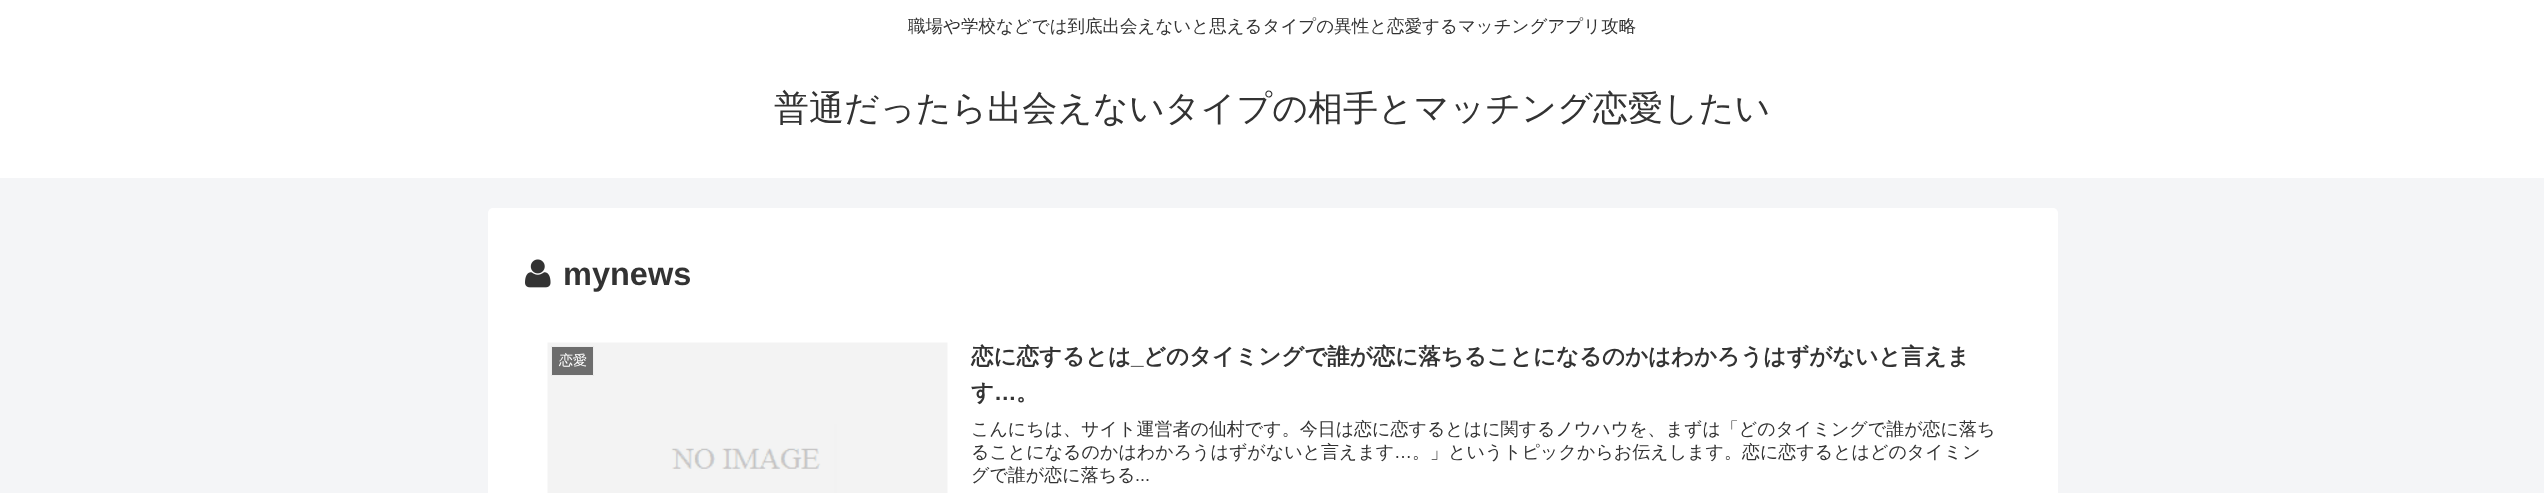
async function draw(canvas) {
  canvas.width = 2544;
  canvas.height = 493;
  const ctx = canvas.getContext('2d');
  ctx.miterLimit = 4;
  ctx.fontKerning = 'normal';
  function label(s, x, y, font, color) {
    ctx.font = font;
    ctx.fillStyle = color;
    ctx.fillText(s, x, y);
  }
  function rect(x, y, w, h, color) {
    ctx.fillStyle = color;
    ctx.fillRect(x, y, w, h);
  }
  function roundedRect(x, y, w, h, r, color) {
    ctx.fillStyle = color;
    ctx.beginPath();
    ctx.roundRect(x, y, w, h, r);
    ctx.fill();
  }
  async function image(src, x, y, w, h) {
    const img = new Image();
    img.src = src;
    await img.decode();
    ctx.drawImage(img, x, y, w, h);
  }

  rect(0, 0, 2544, 493, '#f4f5f7');
  rect(0, 0, 2544, 178, '#fff');
  label('職場や学校などでは到底出会えないと思えるタイプの異性と恋愛するマッチングアプリ攻略', 908, 32, '500 17.5px WenQuanYi Zen Hei', '#333');
  label('普通だったら出会えないタイプの相手とマッチング恋愛したい', 774, 120, '500 35px WenQuanYi Zen Hei', '#333');
  roundedRect(488, 208, 1570, 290, 5, '#fff');
  await image('assets/img1.png', 525, 259, 26, 29);
  label('mynews', 563, 285, 'bold 32.5px Liberation Sans', '#333');
  await image('assets/img2.png', 547, 342, 401, 151);
  ctx.fillStyle = '#6d6d6d';
  ctx.beginPath();
  ctx.rect(551.5, 346.5, 42, 29);
  ctx.fill();
  ctx.strokeStyle = '#eee';
  ctx.stroke();
  label('恋愛', 559, 365, '500 14px WenQuanYi Zen Hei', '#fff');
  label('恋に恋するとは', 971, 364, 'bold 22.5px WenQuanYi Zen Hei', '#333');
  label('_', 1131, 364, 'bold 22.5px Liberation Sans', '#333');
  label('どのタイミングで誰が恋に落ちることになるのかはわかろうはずがないと言えま', 1143, 364, 'bold 22.5px WenQuanYi Zen Hei', '#333');
  label('す', 971, 400, 'bold 22.5px WenQuanYi Zen Hei', '#333');
  label('…', 994, 400, 'bold 22.5px Liberation Sans', '#333');
  label('。', 1016, 400, 'bold 22.5px WenQuanYi Zen Hei', '#333');
  label('こんにちは、サイト運営者の仙村です。今日は恋に恋するとはに関するノウハウを、まずは「どのタイミングで誰が恋に落ち', 971, 435, '500 18px WenQuanYi Zen Hei', '#333');
  label('ることになるのかはわかろうはずがないと言えます', 971, 458, '500 18px WenQuanYi Zen Hei', '#333');
  label('…', 1394, 458, '18px Liberation Sans', '#333');
  label('。」というトピックからお伝えします。恋に恋するとはどのタイミン', 1412, 458, '500 18px WenQuanYi Zen Hei', '#333');
  label('グで誰が恋に落ちる', 971, 481, '500 18px WenQuanYi Zen Hei', '#333');
  label('...', 1135, 481, '18px Liberation Sans', '#333');
}

draw(document.querySelector('canvas'));
